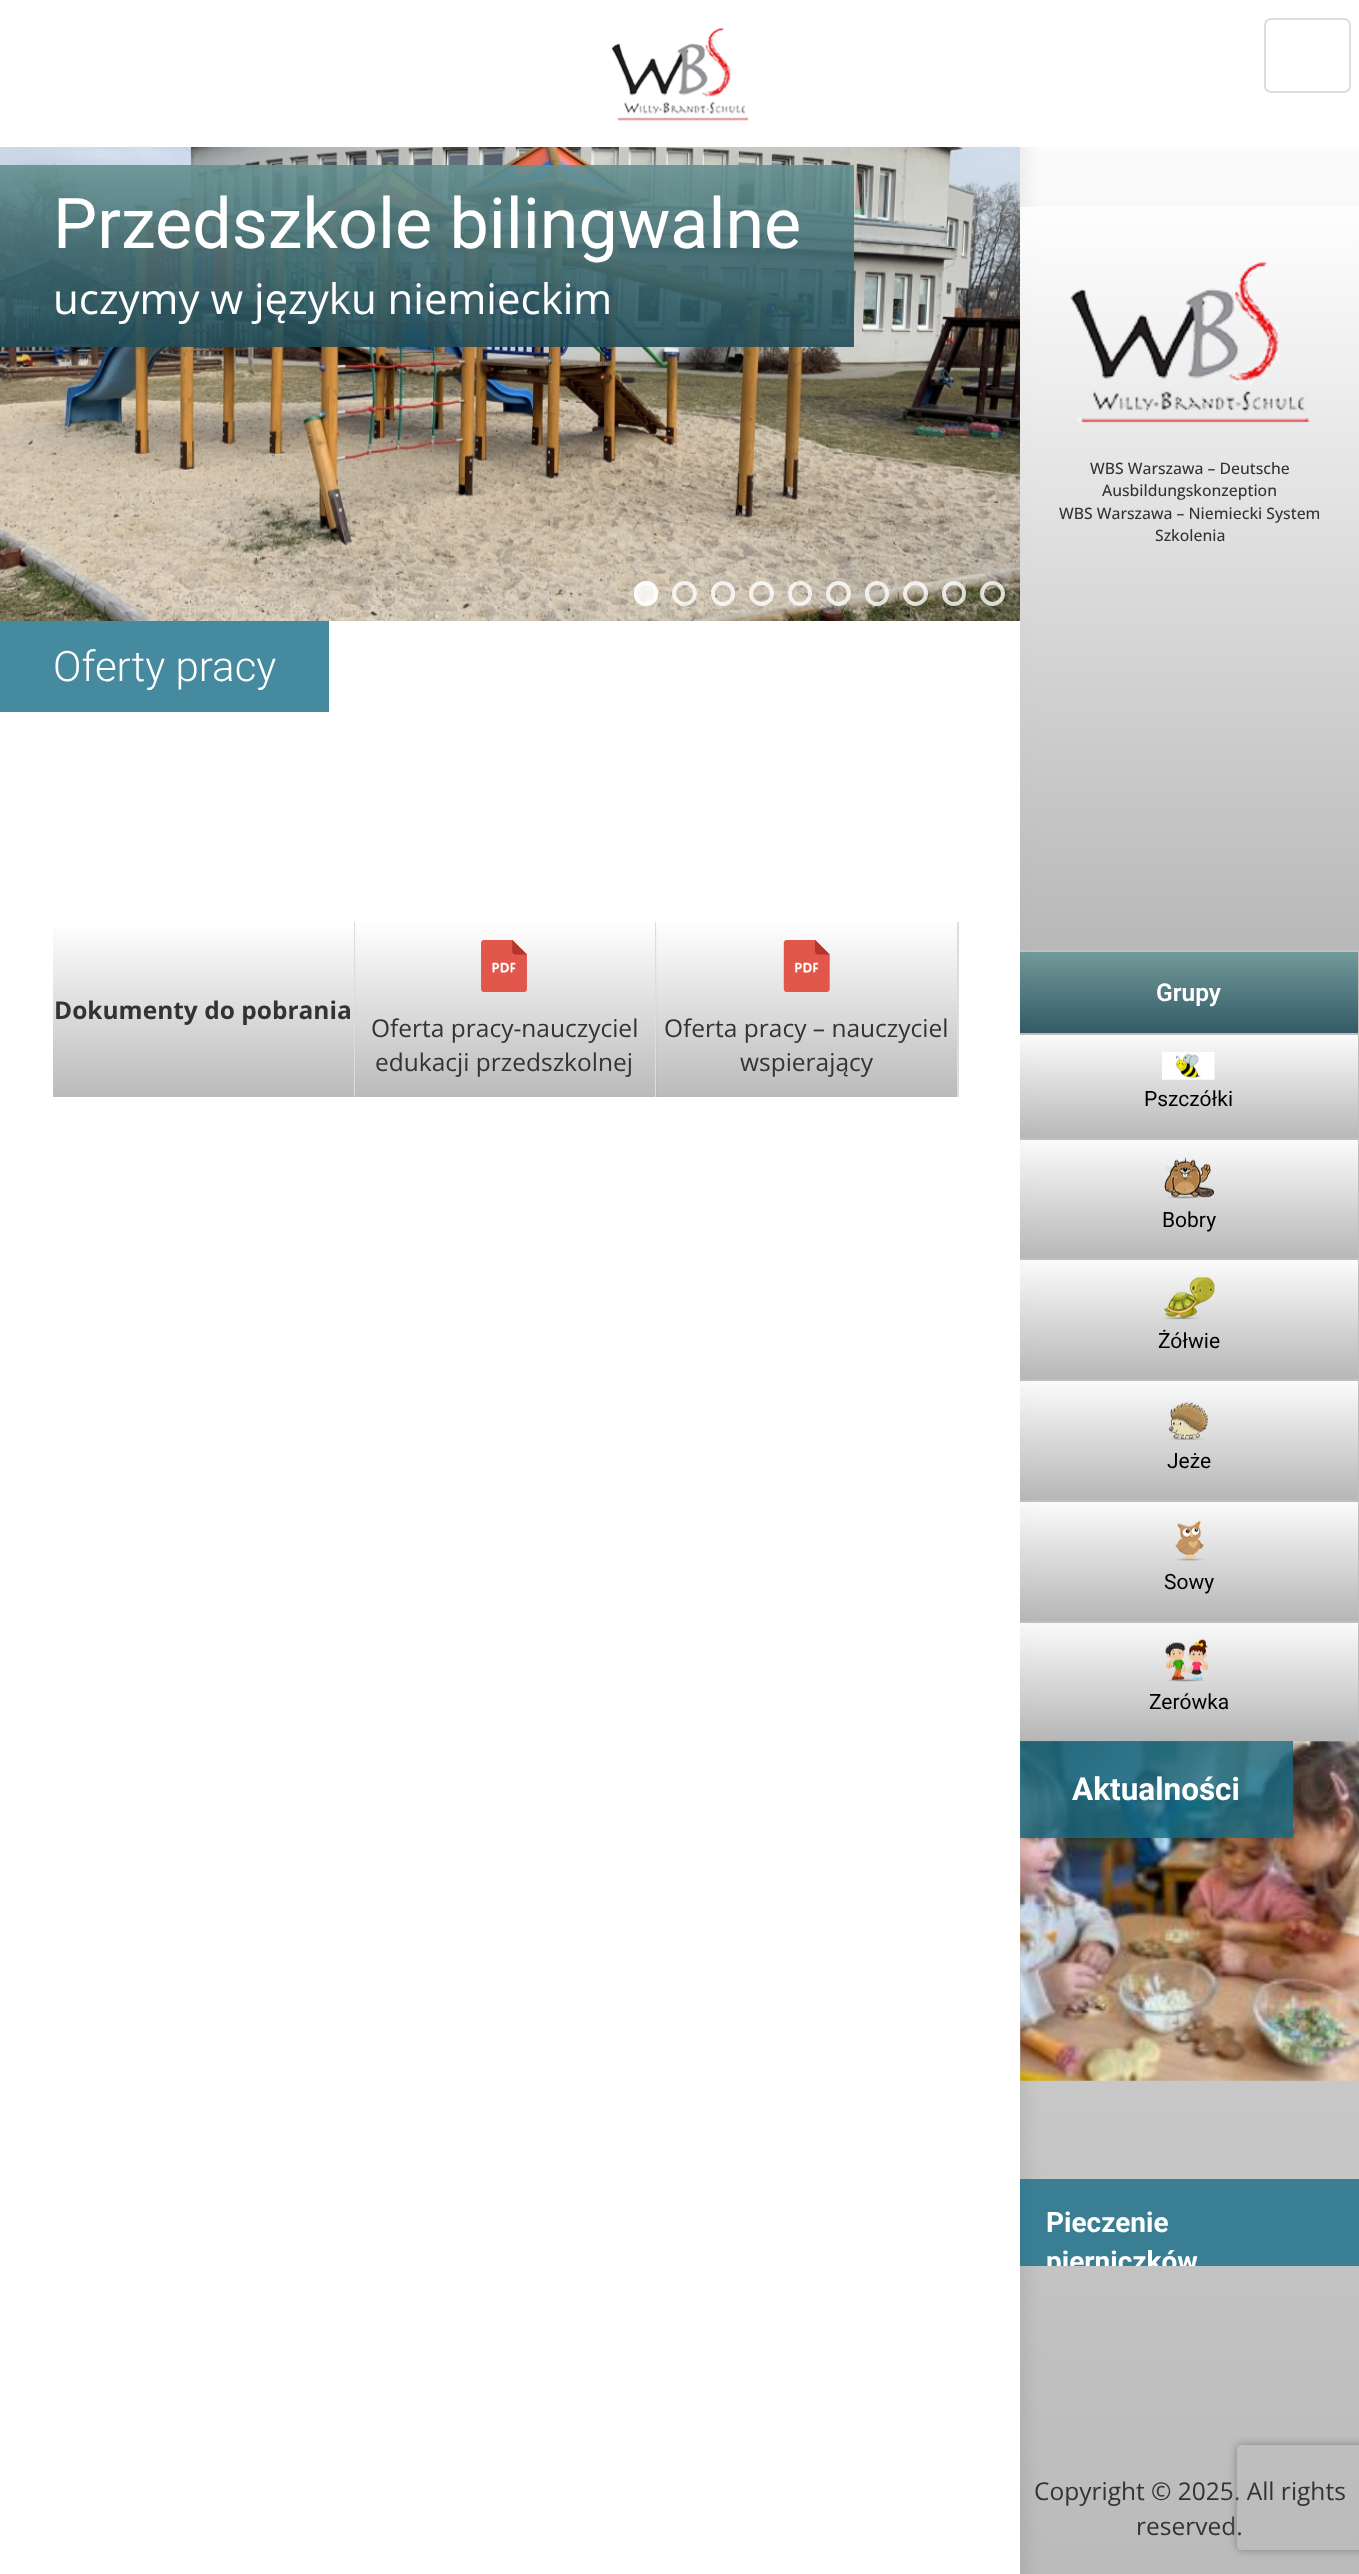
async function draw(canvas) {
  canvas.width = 1359;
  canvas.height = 2574;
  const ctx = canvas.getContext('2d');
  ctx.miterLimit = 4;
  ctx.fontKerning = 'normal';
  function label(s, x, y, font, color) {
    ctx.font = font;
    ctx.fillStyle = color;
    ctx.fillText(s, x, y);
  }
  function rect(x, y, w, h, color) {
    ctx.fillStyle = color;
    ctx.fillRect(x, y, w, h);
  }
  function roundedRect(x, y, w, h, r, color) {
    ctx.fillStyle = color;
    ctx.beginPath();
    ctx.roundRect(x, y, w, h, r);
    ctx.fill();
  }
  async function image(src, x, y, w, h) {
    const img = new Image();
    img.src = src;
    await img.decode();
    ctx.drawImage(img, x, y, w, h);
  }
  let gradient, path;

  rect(0, 0, 1359, 2574, '#fff');
  ctx.save();
  ctx.beginPath();
  ctx.rect(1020, 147, 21, 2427);
  ctx.clip();
  ctx.fillStyle = '#00000080';
  ctx.filter = 'blur(7px)';
  ctx.beginPath();
  ctx.rect(9, 112, 1020, 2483);
  ctx.fill();
  ctx.filter = 'none';
  ctx.restore();
  rect(0, 98, 1043, 49, '#fff');
  await image('assets/img1.png', 611, 28, 138, 93);
  ctx.beginPath();
  ctx.roundRect(1265, 19, 85, 73, 6);
  ctx.strokeStyle = '#ddd';
  ctx.lineWidth = 2;
  ctx.stroke();
  await image('assets/img2.png', 0, 147, 1021, 474);
  roundedRect(634, 581, 24, 25, 12, '#ffffffcc');
  ctx.beginPath();
  ctx.roundRect(636, 583, 20, 21, 10);
  ctx.strokeStyle = '#ffffffcc';
  ctx.lineWidth = 4;
  ctx.stroke();
  ctx.beginPath();
  ctx.arc(684.5, 593.5, 10.5, 0, 2 * Math.PI);
  ctx.stroke();
  ctx.beginPath();
  ctx.roundRect(713, 583, 20, 21, 10);
  ctx.stroke();
  ctx.beginPath();
  ctx.arc(761.5, 593.5, 10.5, 0, 2 * Math.PI);
  ctx.stroke();
  ctx.beginPath();
  ctx.roundRect(790, 583, 20, 21, 10);
  ctx.stroke();
  ctx.beginPath();
  ctx.arc(838.5, 593.5, 10.5, 0, 2 * Math.PI);
  ctx.stroke();
  ctx.beginPath();
  ctx.roundRect(867, 583, 20, 21, 10);
  ctx.stroke();
  ctx.beginPath();
  ctx.arc(915.5, 593.5, 10.5, 0, 2 * Math.PI);
  ctx.stroke();
  ctx.beginPath();
  ctx.roundRect(944, 583, 20, 21, 10);
  ctx.stroke();
  ctx.beginPath();
  ctx.arc(992.5, 593.5, 10.5, 0, 2 * Math.PI);
  ctx.stroke();
  label('Przedszkole bilingwalne', 53, 248, '70px Roboto', '#fff');
  label('uczymy w języku niemieckim', 53, 314, '42px Open Sans', '#fff');
  rect(0, 621, 329, 91, '#468a9f');
  label('Oferty pracy', 53, 681, '300 42px Roboto', '#fff');
  gradient = ctx.createLinearGradient(203, 922, 203, 1097);
  gradient.addColorStop(0, '#fff');
  gradient.addColorStop(0.01, '#fefefe');
  gradient.addColorStop(1, '#bbb');
  ctx.fillStyle = gradient;
  ctx.fillRect(53, 928, 301, 169);
  rect(354, 922, 2, 175, '#ddd');
  label('Dokumenty do pobrania', 54, 1019, 'bold 24.5px Open Sans', '#333');
  gradient = ctx.createLinearGradient(505, 922, 505, 1097);
  gradient.addColorStop(0, '#ffffffe6');
  gradient.addColorStop(0.01, '#fefefee6');
  gradient.addColorStop(1, '#b3b3b3e6');
  ctx.fillStyle = gradient;
  ctx.fillRect(355, 922, 300, 175);
  rect(655, 922, 2, 175, '#ddd');
  await image('assets/img3.png', 481, 940, 46, 52);
  label('Oferta pracy-nauczyciel', 371, 1037, '24.5px Open Sans', '#333');
  label('edukacji przedszkolnej', 375, 1071, '24.5px Open Sans', '#333');
  gradient = ctx.createLinearGradient(807, 922, 807, 1097);
  gradient.addColorStop(0, '#ffffffe6');
  gradient.addColorStop(0.01, '#fefefee6');
  gradient.addColorStop(1, '#b3b3b3e6');
  ctx.fillStyle = gradient;
  ctx.fillRect(656, 922, 301, 175);
  rect(957, 922, 2, 175, '#ddd');
  await image('assets/img4.png', 783, 940, 47, 52);
  label('Oferta pracy – nauczyciel', 664, 1037, '24.5px Open Sans', '#333');
  label('wspierający', 740, 1071, '24.5px Open Sans', '#333');
  gradient = ctx.createLinearGradient(1190, 0, 1190, 2574);
  gradient.addColorStop(0, '#ffffffe6');
  gradient.addColorStop(0.01, '#fefefee6');
  gradient.addColorStop(1, '#b3b3b3e6');
  ctx.fillStyle = gradient;
  ctx.fillRect(1020, 147, 339, 2427);
  gradient = ctx.createLinearGradient(1190, 207, 1190, 950);
  gradient.addColorStop(0, '#ffffffe6');
  gradient.addColorStop(0.01, '#fefefee6');
  gradient.addColorStop(1, '#b3b3b3e6');
  ctx.fillStyle = gradient;
  ctx.fillRect(1020, 207, 339, 743);
  await image('assets/img5.png', 1070, 262, 241, 162);
  label('WBS Warszawa – Deutsche', 1090, 474, '500 15.75px Open Sans', '#333');
  label('Ausbildungskonzeption', 1102, 496, '500 15.75px Open Sans', '#333');
  label('WBS Warszawa – Niemiecki System', 1059, 519, '500 15.75px Open Sans', '#333');
  label('Szkolenia', 1155, 541, '500 15.75px Open Sans', '#333');
  gradient = ctx.createLinearGradient(1189, 952, 1189, 1033);
  gradient.addColorStop(0, '#669292e6');
  gradient.addColorStop(0.01, '#659191e6');
  gradient.addColorStop(1, '#204c59e6');
  ctx.fillStyle = gradient;
  ctx.fillRect(1020, 952, 338, 81);
  rect(1020, 950, 339, 2, '#bfbfbf');
  rect(1358, 950, 1, 83, '#bfbfbf');
  label('Grupy', 1156, 1001, '600 24.5px Roboto', '#fff');
  gradient = ctx.createLinearGradient(1189, 1034, 1189, 1138);
  gradient.addColorStop(0, '#ffffffe6');
  gradient.addColorStop(0.01, '#fefefee6');
  gradient.addColorStop(1, '#b3b3b3e6');
  ctx.fillStyle = gradient;
  ctx.fillRect(1020, 1035, 338, 103);
  rect(1020, 1033, 339, 2, '#bfbfbf');
  rect(1358, 1033, 1, 105, '#bfbfbf');
  await image('assets/img6.png', 1162, 1052, 53, 28);
  label('Pszczółki', 1144, 1106, '21px Roboto', '#000');
  gradient = ctx.createLinearGradient(1189, 1139, 1189, 1258);
  gradient.addColorStop(0, '#ffffffe6');
  gradient.addColorStop(0.01, '#fefefee6');
  gradient.addColorStop(1, '#b3b3b3e6');
  ctx.fillStyle = gradient;
  ctx.fillRect(1020, 1140, 338, 118);
  rect(1020, 1138, 339, 2, '#bfbfbf');
  rect(1358, 1138, 1, 120, '#bfbfbf');
  await image('assets/img7.png', 1164, 1157, 50, 42);
  label('Bobry', 1162, 1227, '21px Roboto', '#000');
  gradient = ctx.createLinearGradient(1189, 1260, 1189, 1379);
  gradient.addColorStop(0, '#ffffffe6');
  gradient.addColorStop(0.01, '#fefefee6');
  gradient.addColorStop(1, '#b3b3b3e6');
  ctx.fillStyle = gradient;
  ctx.fillRect(1020, 1260, 338, 119);
  rect(1020, 1258, 339, 2, '#bfbfbf');
  rect(1358, 1258, 1, 121, '#bfbfbf');
  await image('assets/img8.png', 1162, 1276, 53, 44);
  label('Żółwie', 1158, 1348, '21px Roboto', '#000');
  gradient = ctx.createLinearGradient(1189, 1381, 1189, 1500);
  gradient.addColorStop(0, '#ffffffe6');
  gradient.addColorStop(0.01, '#fefefee6');
  gradient.addColorStop(1, '#b3b3b3e6');
  ctx.fillStyle = gradient;
  ctx.fillRect(1020, 1381, 338, 119);
  rect(1020, 1379, 339, 2, '#bfbfbf');
  rect(1358, 1379, 1, 121, '#bfbfbf');
  await image('assets/img9.png', 1169, 1402, 39, 38);
  label('Jeże', 1167, 1468, '21px Roboto', '#000');
  gradient = ctx.createLinearGradient(1189, 1502, 1189, 1621);
  gradient.addColorStop(0, '#ffffffe6');
  gradient.addColorStop(0.01, '#fefefee6');
  gradient.addColorStop(1, '#b3b3b3e6');
  ctx.fillStyle = gradient;
  ctx.fillRect(1020, 1502, 338, 119);
  rect(1020, 1500, 339, 2, '#bfbfbf');
  rect(1358, 1500, 1, 121, '#bfbfbf');
  await image('assets/img10.png', 1175, 1520, 29, 41);
  label('Sowy', 1164, 1589, '21px Roboto', '#000');
  gradient = ctx.createLinearGradient(1189, 1622, 1189, 1741);
  gradient.addColorStop(0, '#ffffffe6');
  gradient.addColorStop(0.01, '#fefefee6');
  gradient.addColorStop(1, '#b3b3b3e6');
  ctx.fillStyle = gradient;
  ctx.fillRect(1020, 1623, 338, 118);
  rect(1020, 1621, 339, 2, '#bfbfbf');
  rect(1358, 1621, 1, 120, '#bfbfbf');
  await image('assets/img11.png', 1165, 1639, 43, 43);
  label('Zerówka', 1149, 1709, '21px Roboto', '#000');
  await image('assets/img12.png', 1020, 1741, 339, 340);
  rect(1020, 1741, 273, 97, '#186d87cc');
  label('Aktualności', 1072, 1800, 'bold 31.5px Roboto', '#fff');
  rect(1020, 2179, 339, 87, '#186d87cc');
  label('Pieczenie', 1046, 2232, 'bold 28px Roboto', '#fff');
  ctx.save();
  ctx.beginPath();
  ctx.rect(1020, 1741, 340, 525);
  ctx.clip();
  label('pierniczków', 1046, 2271, 'bold 28px Roboto', '#fff');
  ctx.restore();
  label('Copyright © 2025. All rights', 1034, 2500, '24.5px Open Sans', '#333');
  label('reserved.', 1136, 2535, '24.5px Open Sans', '#333');
  ctx.save();
  path = new Path2D('M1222 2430H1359V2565H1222ZM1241 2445H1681C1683 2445 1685 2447 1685 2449V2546C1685 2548 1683 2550 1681 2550H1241C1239 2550 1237 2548 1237 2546V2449C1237 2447 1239 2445 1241 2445Z');
  ctx.clip(path, 'evenodd');
  ctx.fillStyle = '#808080';
  ctx.filter = 'blur(4.5px)';
  ctx.beginPath();
  ctx.roundRect(1237, 2445, 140, 105, 4);
  ctx.fill();
  ctx.filter = 'none';
  ctx.restore();
}

draw(document.querySelector('canvas'));
